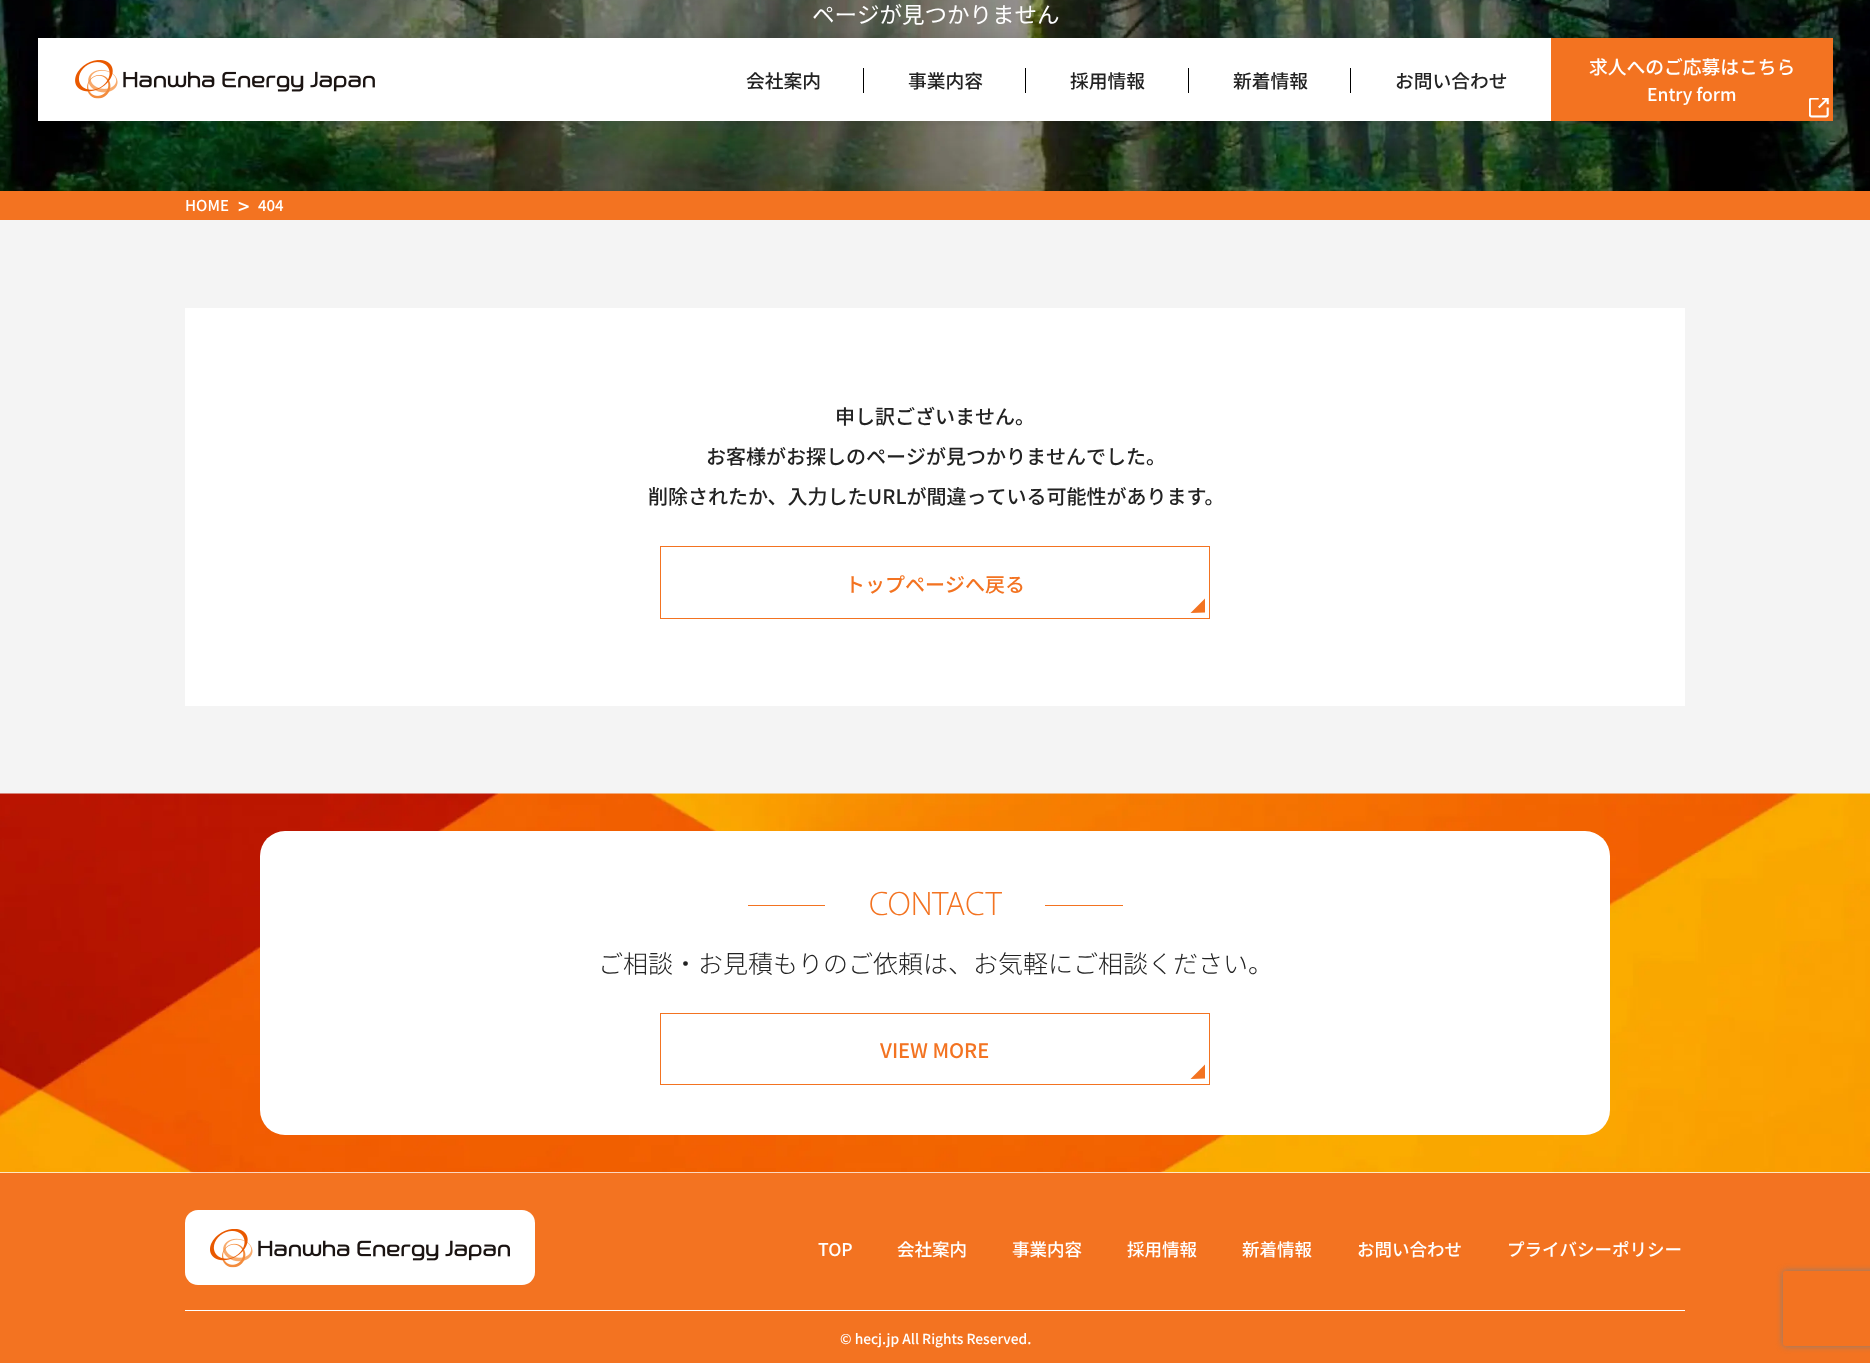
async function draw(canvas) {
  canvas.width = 1870;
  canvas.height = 1363;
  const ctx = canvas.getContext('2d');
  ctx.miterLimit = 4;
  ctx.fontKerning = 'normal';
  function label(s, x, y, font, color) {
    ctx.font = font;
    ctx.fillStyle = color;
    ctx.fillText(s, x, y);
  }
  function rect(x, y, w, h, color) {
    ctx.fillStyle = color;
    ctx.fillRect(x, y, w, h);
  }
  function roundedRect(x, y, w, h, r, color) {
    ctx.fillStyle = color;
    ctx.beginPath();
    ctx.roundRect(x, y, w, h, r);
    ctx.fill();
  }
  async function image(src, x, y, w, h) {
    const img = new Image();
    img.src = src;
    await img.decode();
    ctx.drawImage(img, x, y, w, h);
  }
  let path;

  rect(0, 0, 1870, 1363, '#fff');
  await image('assets/img1.png', 0, 0, 1870, 191);
  label('ページが見つかりません', 812, 23, '22.5px Noto Sans JP', '#fff');
  ctx.fillStyle = '#0000001a';
  ctx.filter = 'blur(6px)';
  ctx.beginPath();
  ctx.rect(38, 38, 1795, 83);
  ctx.fill();
  ctx.filter = 'none';
  rect(38, 38, 1513, 83, '#fff');
  await image('assets/img2.png', 75, 60, 300, 39);
  label('会社案内', 746, 88, '500 18.75px Noto Sans JP', '#222');
  rect(863, 68, 1, 25, '#000');
  label('事業内容', 908, 88, '500 18.75px Noto Sans JP', '#222');
  rect(1025, 68, 1, 25, '#000');
  label('採用情報', 1070, 88, '500 18.75px Noto Sans JP', '#222');
  rect(1188, 68, 1, 25, '#000');
  label('新着情報', 1233, 88, '500 18.75px Noto Sans JP', '#222');
  rect(1350, 68, 1, 25, '#000');
  label('お問い合わせ', 1395, 88, '500 18.75px Noto Sans JP', '#222');
  rect(1551, 38, 282, 83, '#f37321');
  label('求人へのご応募はこちら', 1589, 74, '500 18.75px Noto Sans JP', '#fff');
  label('Entry form', 1647, 101, '500 17.5px Noto Sans JP', '#fff');
  await image('assets/img3.png', 1809, 98, 20, 20);
  rect(0, 191, 1870, 29, '#f37321');
  label('HOME', 185, 211, '500 15px Noto Sans JP', '#fff');
  label('>', 238, 214, '500 20px Noto Sans JP', '#fff');
  label('404', 258, 211, '500 15px Noto Sans JP', '#fff');
  rect(0, 220, 1870, 574, '#f4f4f4');
  rect(185, 308, 1500, 398, '#fff');
  label('申し訳ございません。', 835, 424, '500 20px Noto Sans JP', '#222');
  label('お客様がお探しのページが見つかりませんでした。', 706, 464, '500 20px Noto Sans JP', '#222');
  label('削除されたか、入力したURLが間違っている可能性があります。', 648, 504, '500 20px Noto Sans JP', '#222');
  ctx.strokeStyle = '#f37321';
  ctx.strokeRect(660.5, 546.5, 549, 72);
  label('トップページへ戻る', 845, 592, '500 20px Noto Sans JP', '#f37321');
  path = new Path2D('M1190.5 613L1205 598.5V612.5Z');
  ctx.fill(path);
  await image('assets/img4.png', 0, 793, 1870, 380);
  roundedRect(260, 831, 1350, 304, 25, '#fff');
  rect(748, 905, 375, 1, '#f37321');
  rect(825, 905, 220, 1, '#fff');
  label('CONTACT', 869, 915, '300 34px Myriad', '#f37321');
  label('ご相談・お見積もりのご依頼は、お気軽にご相談ください。', 598, 973, '300 25px Noto Sans JP', '#222');
  ctx.strokeRect(660.5, 1013.5, 549, 71);
  label('VIEW MORE', 880, 1058, '500 20px Noto Sans JP', '#f37321');
  path = new Path2D('M1190.5 1079L1205 1064.5V1078.5Z');
  ctx.fill(path);
  rect(0, 1173, 1870, 190, '#f37321');
  roundedRect(185, 1210, 350, 75, 13, '#fff');
  await image('assets/img5.png', 210, 1229, 300, 39);
  label('TOP', 818, 1256, '500 17.5px Noto Sans JP', '#fff');
  label('会社案内', 897, 1256, '500 17.5px Noto Sans JP', '#fff');
  label('事業内容', 1012, 1256, '500 17.5px Noto Sans JP', '#fff');
  label('採用情報', 1127, 1256, '500 17.5px Noto Sans JP', '#fff');
  label('新着情報', 1242, 1256, '500 17.5px Noto Sans JP', '#fff');
  label('お問い合わせ', 1357, 1256, '500 17.5px Noto Sans JP', '#fff');
  label('プライバシーポリシー', 1507, 1256, '500 17.5px Noto Sans JP', '#fff');
  rect(185, 1310, 1500, 1, '#fff');
  label('© hecj.jp All Rights Reserved.', 840, 1344, '500 13.75px Noto Sans JP', '#fff');
  ctx.save();
  path = new Path2D('M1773 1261H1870V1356H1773ZM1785.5 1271H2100.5C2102 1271 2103 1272 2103 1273.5V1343.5C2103 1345 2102 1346 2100.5 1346H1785.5C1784 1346 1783 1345 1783 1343.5V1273.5C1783 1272 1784 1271 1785.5 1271Z');
  ctx.clip(path, 'evenodd');
  ctx.fillStyle = '#808080';
  ctx.filter = 'blur(3px)';
  ctx.beginPath();
  ctx.roundRect(1783, 1271, 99, 75, 2.5);
  ctx.fill();
  ctx.filter = 'none';
  ctx.restore();
}

draw(document.querySelector('canvas'));
